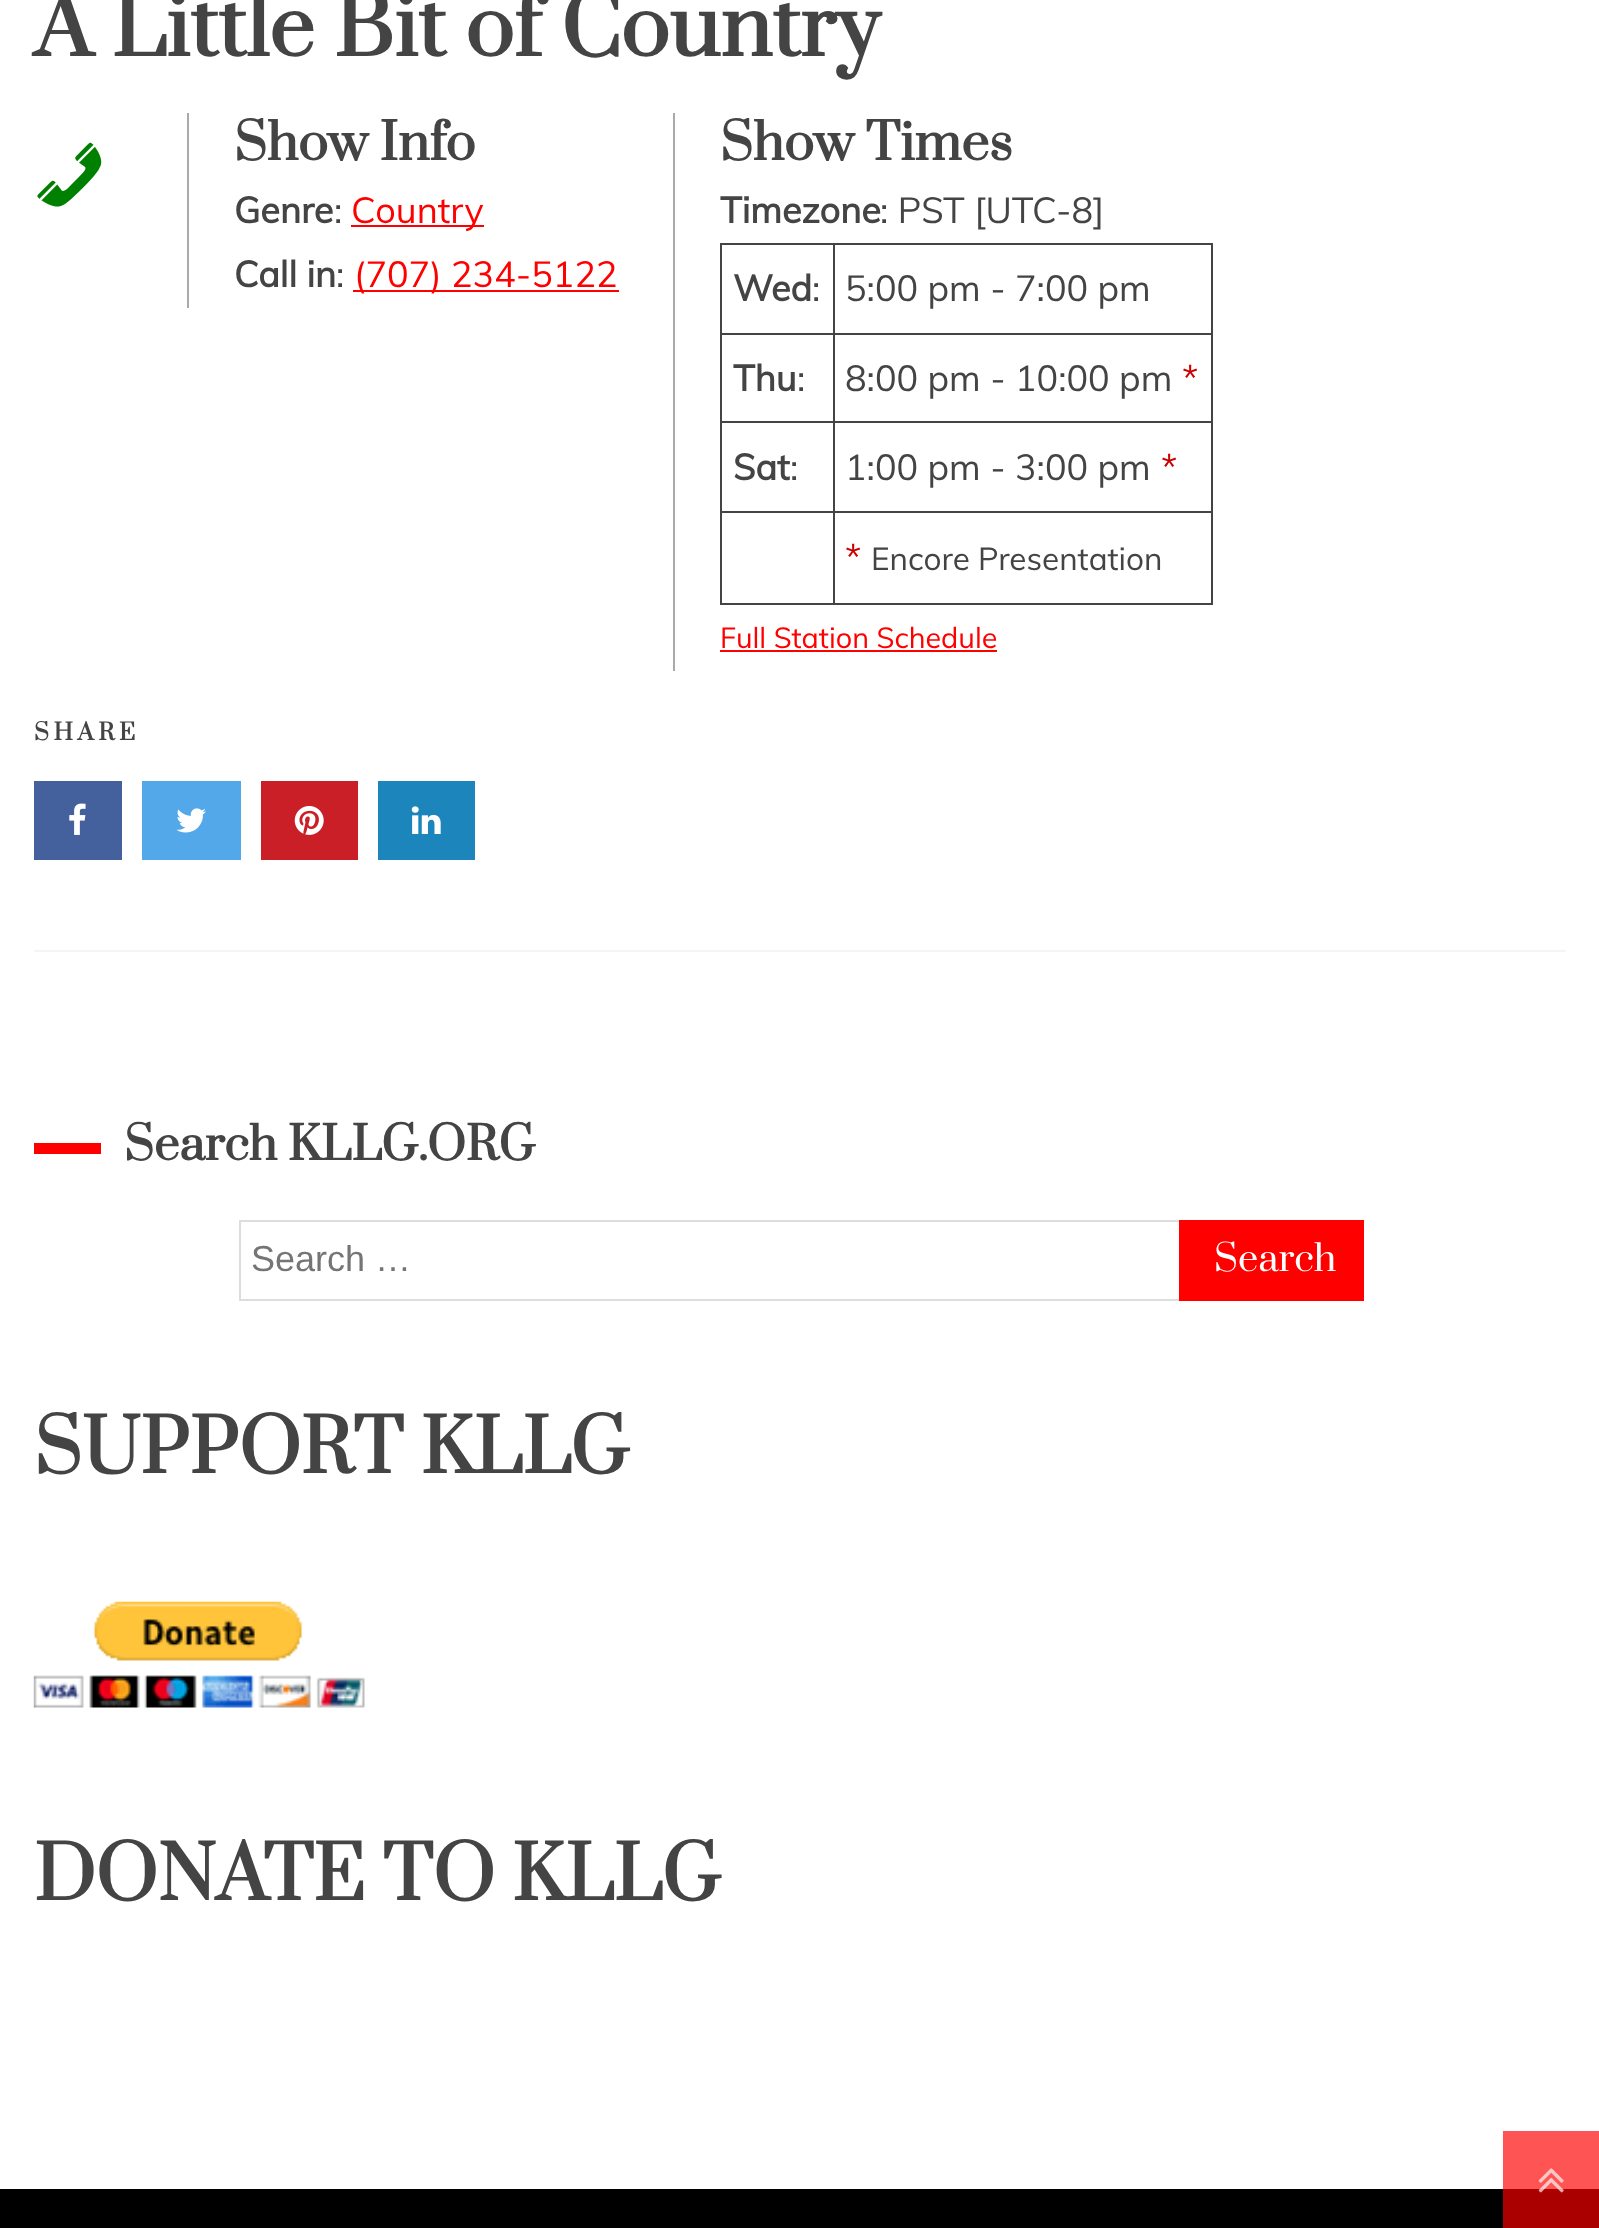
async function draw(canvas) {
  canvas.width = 1599;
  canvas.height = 2228;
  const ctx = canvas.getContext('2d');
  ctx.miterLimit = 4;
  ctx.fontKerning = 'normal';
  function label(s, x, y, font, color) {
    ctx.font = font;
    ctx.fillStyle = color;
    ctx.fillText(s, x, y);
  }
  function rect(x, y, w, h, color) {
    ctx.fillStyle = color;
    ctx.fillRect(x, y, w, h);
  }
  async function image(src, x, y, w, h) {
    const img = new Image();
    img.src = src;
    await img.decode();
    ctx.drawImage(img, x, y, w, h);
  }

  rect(0, 0, 1599, 2228, '#fff');
  rect(1503, 2131, 96, 58, '#ff5454');
  rect(34, 950, 1532, 2, '#f5f5f5');
  label('A Little Bit of Country', 34, 56, 'bold 81px Prata', '#444');
  await image('assets/img1.png', 37, 142, 65, 65);
  rect(187, 113, 2, 195, '#aaa');
  label('Show Info', 234, 160, 'bold 49.5px Prata', '#444');
  label('Genre', 234, 223, 'bold 36px Muli', '#444');
  label(':', 334, 223, '36px Muli', '#444');
  rect(351, 225, 133, 2, '#f00');
  label('Country', 351, 223, '36px Muli', '#f00');
  label('Call in', 234, 287, 'bold 36px Muli', '#444');
  label(':', 336, 287, '36px Muli', '#444');
  rect(353, 290, 266, 2, '#f00');
  label('(707) 234-5122', 354, 287, '36px Muli', '#f00');
  rect(673, 113, 2, 558, '#aaa');
  label('Show Times', 720, 160, 'bold 49.5px Prata', '#444');
  label('Timezone', 720, 223, 'bold 36px Muli', '#444');
  label(': PST [UTC-8]', 880, 223, '36px Muli', '#444');
  rect(833, 243, 380, 2, '#444');
  rect(833, 333, 380, 2, '#444');
  rect(833, 421, 380, 2, '#444');
  rect(833, 511, 380, 2, '#444');
  rect(1211, 511, 2, 94, '#444');
  rect(833, 603, 380, 2, '#444');
  rect(833, 511, 2, 94, '#444');
  rect(720, 511, 115, 2, '#444');
  rect(833, 421, 2, 92, '#444');
  rect(720, 421, 115, 2, '#444');
  rect(833, 333, 2, 90, '#444');
  rect(720, 333, 115, 2, '#444');
  rect(833, 243, 2, 92, '#444');
  rect(720, 243, 115, 2, '#444');
  rect(720, 603, 115, 2, '#444');
  rect(720, 511, 2, 94, '#444');
  rect(720, 421, 2, 92, '#444');
  rect(720, 333, 2, 90, '#444');
  rect(720, 243, 2, 92, '#444');
  label('Wed', 733, 301, 'bold 36px Muli', '#444');
  label(':', 812, 301, '36px Muli', '#444');
  rect(1211, 421, 2, 92, '#444');
  rect(1211, 333, 2, 90, '#444');
  rect(1211, 243, 2, 92, '#444');
  label('5:00 pm - 7:00 pm', 845, 301, '36px Muli', '#444');
  label('Thu', 733, 391, 'bold 36px Muli', '#444');
  label(':', 797, 391, '36px Muli', '#444');
  label('8:00 pm - 10:00 pm', 845, 391, '36px Muli', '#444');
  label('*', 1182, 391, '36px Muli', '#c00');
  label('Sat', 733, 480, 'bold 36px Muli', '#444');
  label(':', 790, 480, '36px Muli', '#444');
  label('1:00 pm - 3:00 pm', 845, 480, '36px Muli', '#444');
  label('*', 1161, 480, '36px Muli', '#c00');
  label('*', 845, 570, '36px Muli', '#c00');
  label('Encore Presentation', 871, 570, '31.5px Muli', '#444');
  label('Full Station Schedule', 720, 648, '28.75px Muli', '#f00');
  rect(720, 650, 277, 2, '#f00');
  ctx.letterSpacing = '4.5px';
  label('SHARE', 34, 740, 'bold 22.5px Prata', '#444');
  rect(34, 781, 88, 79, '#45619d');
  await image('assets/img2.png', 69, 803, 17, 32);
  rect(142, 781, 99, 79, '#53a8ea');
  await image('assets/img3.png', 176, 808, 30, 25);
  rect(261, 781, 97, 79, '#ca1f26');
  await image('assets/img4.png', 294, 806, 30, 29);
  rect(378, 781, 97, 79, '#1b85bc');
  await image('assets/img5.png', 411, 806, 30, 28);
  rect(34, 1143, 67, 11, '#f00');
  ctx.letterSpacing = '0px';
  label('Search KLLG.ORG', 124, 1160, 'bold 45px Prata', '#444');
  ctx.strokeStyle = '#ddd';
  ctx.lineWidth = 2;
  ctx.strokeRect(240, 1221, 1123, 79);
  label('Search …', 251, 1271, '36px Liberation Sans', '#757575');
  rect(1179, 1220, 185, 81, '#f00');
  label('Search', 1214, 1271, '36px Prata', '#fff');
  label('SUPPORT KLLG', 34, 1473, 'bold 72px Prata', '#444');
  await image('assets/img6.png', 33, 1601, 332, 107);
  label('DONATE TO KLLG', 34, 1900, 'bold 72px Prata', '#444');
  rect(1503, 2189, 96, 39, '#ab0000');
  await image('assets/img7.png', 1538, 2168, 26, 25);
  rect(0, 2189, 1503, 39, '#000');
}

draw(document.querySelector('canvas'));
